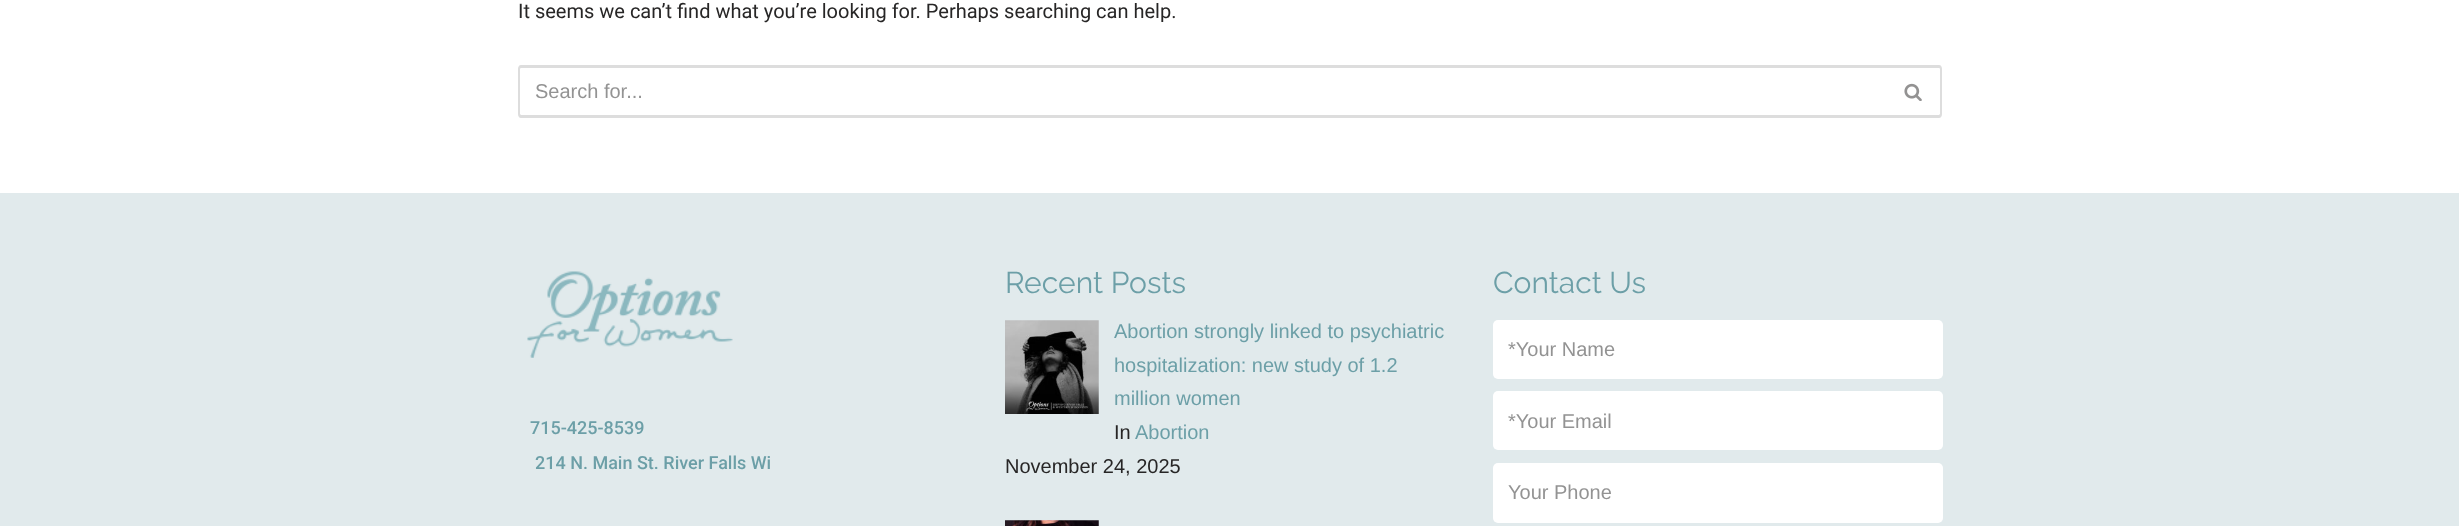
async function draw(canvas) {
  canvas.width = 2459;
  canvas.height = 526;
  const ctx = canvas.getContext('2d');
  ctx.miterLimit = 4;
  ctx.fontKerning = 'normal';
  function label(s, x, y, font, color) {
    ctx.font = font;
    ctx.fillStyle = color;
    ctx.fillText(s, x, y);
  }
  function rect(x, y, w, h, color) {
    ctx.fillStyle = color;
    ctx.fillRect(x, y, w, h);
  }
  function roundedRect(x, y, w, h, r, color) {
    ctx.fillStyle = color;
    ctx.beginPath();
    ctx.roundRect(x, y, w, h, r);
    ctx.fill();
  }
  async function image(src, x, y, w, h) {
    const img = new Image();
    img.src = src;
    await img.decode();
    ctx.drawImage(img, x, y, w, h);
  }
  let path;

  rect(0, 0, 2459, 526, '#fff');
  label('It seems we can’t find what you’re looking for. Perhaps searching can help.', 518, 18, '20px Roboto', '#272626');
  ctx.fillStyle = '#ddd';
  path = new Path2D('M521 65H1886V118H521C519 118 518 116 518 114V69C518 67 519 65 521 65ZM521 68H1886V115H521C521 115 520 114 520 114V69C520 68 521 68 521 68Z');
  ctx.fill(path, 'evenodd');
  label('Search for...', 535, 98, '20px Liberation Sans', '#939393');
  ctx.fillStyle = '#ddd';
  path = new Path2D('M1886 65H1939C1941 65 1942 67 1942 69V114C1942 116 1941 118 1939 118H1886ZM1886 68H1939C1939 68 1940 68 1940 69V114C1940 114 1939 115 1939 115H1886Z');
  ctx.fill(path, 'evenodd');
  await image('assets/img1.png', 1904, 83, 18, 18);
  rect(0, 193, 2459, 333, '#e1eaec');
  await image('assets/img2.png', 527, 271, 206, 87);
  label('715-425-8539', 530, 434, '500 18px Roboto', '#6c9fa7');
  label('214 N. Main St. River Falls Wi', 535, 469, '500 18px Roboto', '#6c9fa7');
  label('Recent Posts', 1005, 293, '30px Raleway', '#6c9fa7');
  await image('assets/img3.png', 1005, 320, 94, 94);
  label('Abortion strongly linked to psychiatric', 1114, 338, '20px Liberation Sans', '#6c9fa7');
  label('hospitalization: new study of 1.2', 1114, 372, '20px Liberation Sans', '#6c9fa7');
  label('million women', 1114, 405, '20px Liberation Sans', '#6c9fa7');
  label('In', 1114, 439, '20px Liberation Sans', '#272626');
  label('Abortion', 1135, 439, '20px Liberation Sans', '#6c9fa7');
  label('November 24, 2025', 1005, 473, '20px Liberation Sans', '#272626');
  await image('assets/img4.png', 1005, 520, 94, 6);
  label('Contact Us', 1493, 293, '30px Raleway', '#6c9fa7');
  roundedRect(1493, 320, 450, 59, 5, '#fff');
  label('*Your Name', 1508, 356, '20px Liberation Sans', '#939393');
  roundedRect(1493, 391, 450, 59, 5, '#fff');
  label('*Your Email', 1508, 428, '20px Liberation Sans', '#939393');
  roundedRect(1493, 463, 450, 60, 5, '#fff');
  label('Your Phone', 1508, 499, '20px Liberation Sans', '#939393');
}

draw(document.querySelector('canvas'));
